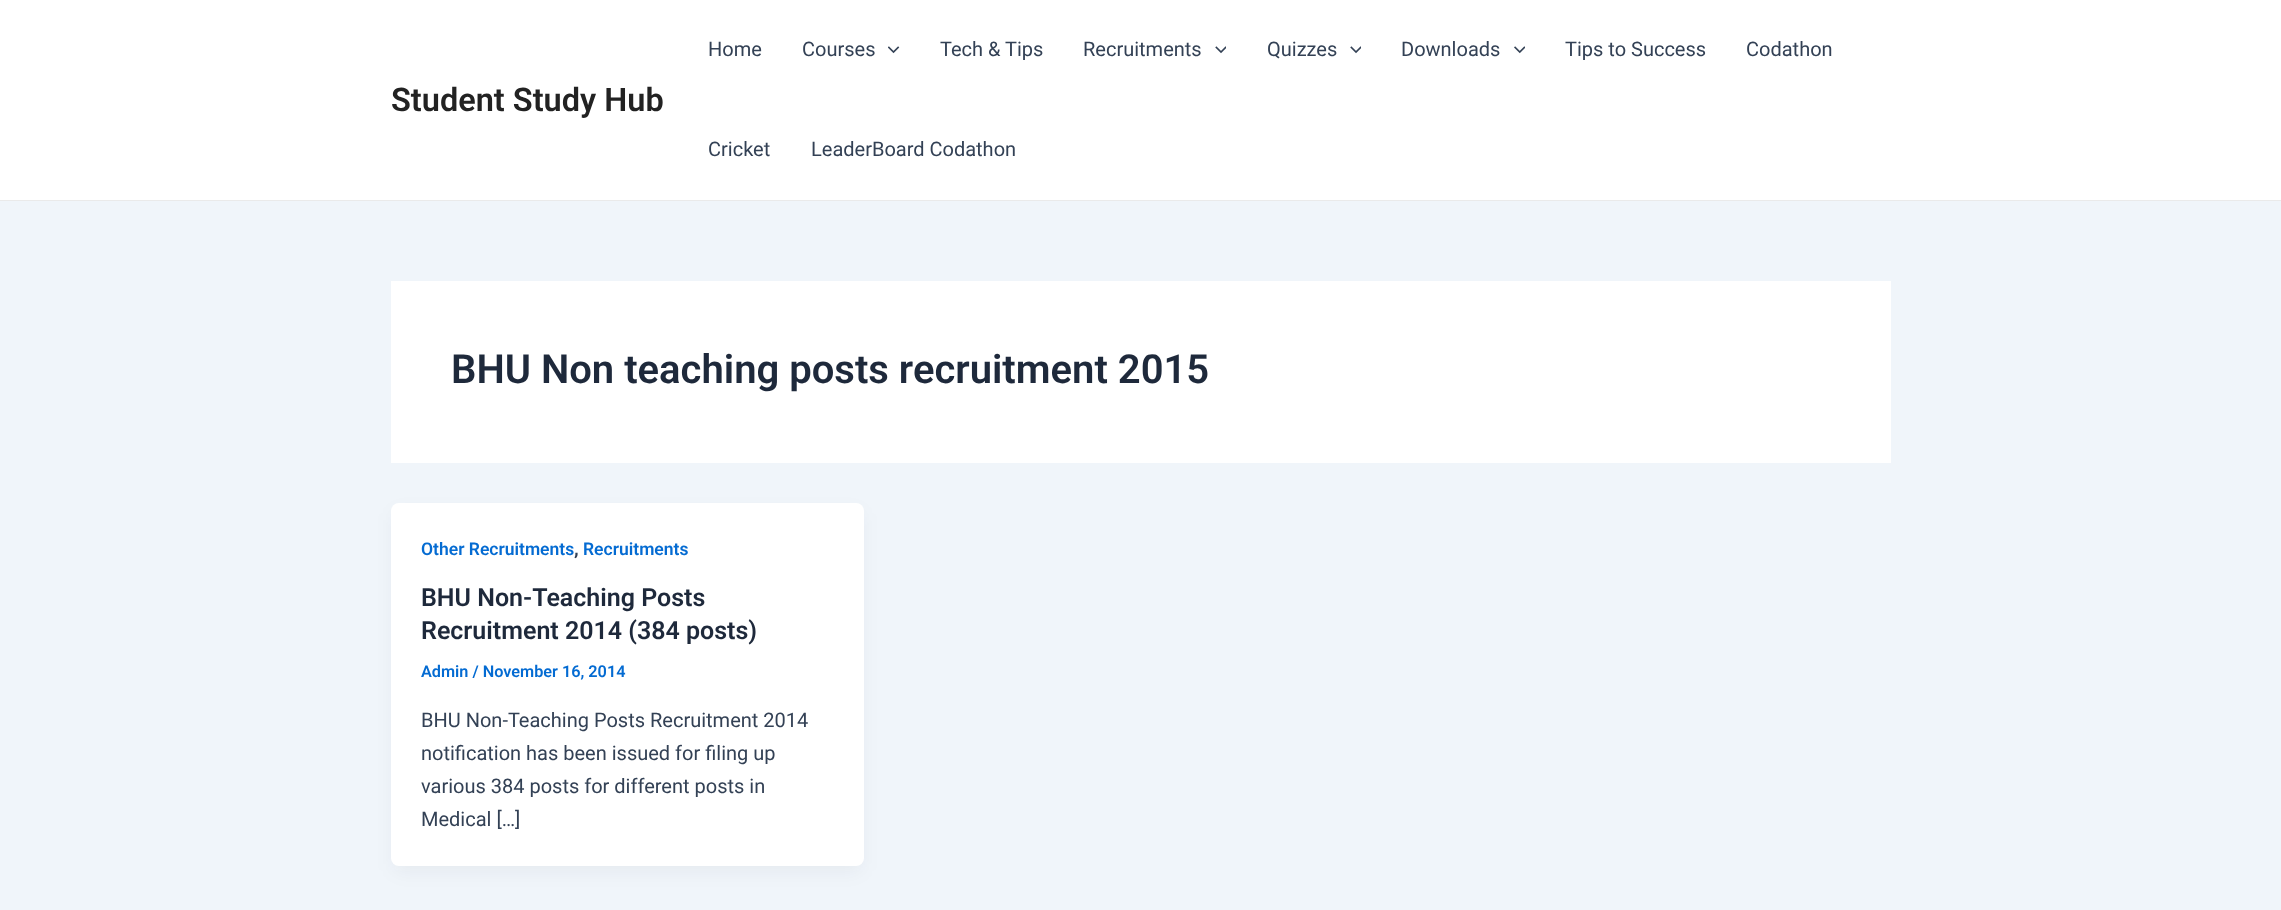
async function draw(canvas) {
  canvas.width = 2281;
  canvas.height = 910;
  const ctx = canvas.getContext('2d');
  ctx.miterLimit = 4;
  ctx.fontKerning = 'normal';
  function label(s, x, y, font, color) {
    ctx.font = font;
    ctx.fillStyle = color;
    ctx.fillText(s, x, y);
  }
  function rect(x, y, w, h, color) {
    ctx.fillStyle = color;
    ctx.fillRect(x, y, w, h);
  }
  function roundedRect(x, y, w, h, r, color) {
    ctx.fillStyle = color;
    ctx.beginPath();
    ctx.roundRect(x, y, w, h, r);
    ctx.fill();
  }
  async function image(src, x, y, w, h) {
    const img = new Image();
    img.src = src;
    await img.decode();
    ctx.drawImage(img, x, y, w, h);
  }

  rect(0, 0, 2281, 910, '#f0f5fa');
  rect(0, 0, 2281, 200, '#fff');
  rect(0, 200, 2281, 1, '#eaeaea');
  label('Student Study Hub', 391, 111, '600 32.5px Roboto', '#222');
  label('Home', 708, 56, '20px Roboto', '#334155');
  label('Courses', 802, 56, '20px Roboto', '#334155');
  await image('assets/img1.png', 888, 46, 12, 8);
  label('Tech & Tips', 940, 56, '20px Roboto', '#334155');
  label('Recruitments', 1083, 56, '20px Roboto', '#334155');
  await image('assets/img2.png', 1215, 46, 11, 8);
  label('Quizzes', 1267, 56, '20px Roboto', '#334155');
  await image('assets/img2.png', 1350, 46, 11, 8);
  label('Downloads', 1401, 56, '20px Roboto', '#334155');
  await image('assets/img3.png', 1514, 46, 11, 8);
  label('Tips to Success', 1565, 56, '20px Roboto', '#334155');
  label('Codathon', 1746, 56, '20px Roboto', '#334155');
  label('Cricket', 708, 156, '20px Roboto', '#334155');
  label('LeaderBoard Codathon', 811, 156, '20px Roboto', '#334155');
  rect(391, 281, 1500, 182, '#fff');
  label('BHU Non teaching posts recruitment 2015', 451, 383, '600 40px Roboto', '#1e293b');
  ctx.fillStyle = '#1018280d';
  ctx.filter = 'blur(9.5px)';
  ctx.beginPath();
  ctx.roundRect(394, 513, 467, 358, 5);
  ctx.fill();
  ctx.filter = 'none';
  roundedRect(391, 503, 473, 363, 8, '#fff');
  label('Other Recruitments', 421, 555, '600 17.5px Roboto', '#046bd2');
  label(',', 574, 555, '600 20px Roboto', '#334155');
  label('Recruitments', 583, 555, '600 17.5px Roboto', '#046bd2');
  label('BHU Non-Teaching Posts', 421, 606, '600 25px Roboto', '#1e293b');
  label('Recruitment 2014 (384 posts)', 421, 639, '600 25px Roboto', '#1e293b');
  label('Admin / November 16, 2014', 421, 677, '600 16.25px Roboto', '#046bd2');
  label('BHU Non-Teaching Posts Recruitment 2014', 421, 727, '20px Roboto', '#334155');
  label('notification has been issued for filing up', 421, 760, '20px Roboto', '#334155');
  label('various 384 posts for different posts in', 421, 793, '20px Roboto', '#334155');
  label('Medical […]', 421, 826, '20px Roboto', '#334155');
}

draw(document.querySelector('canvas'));
